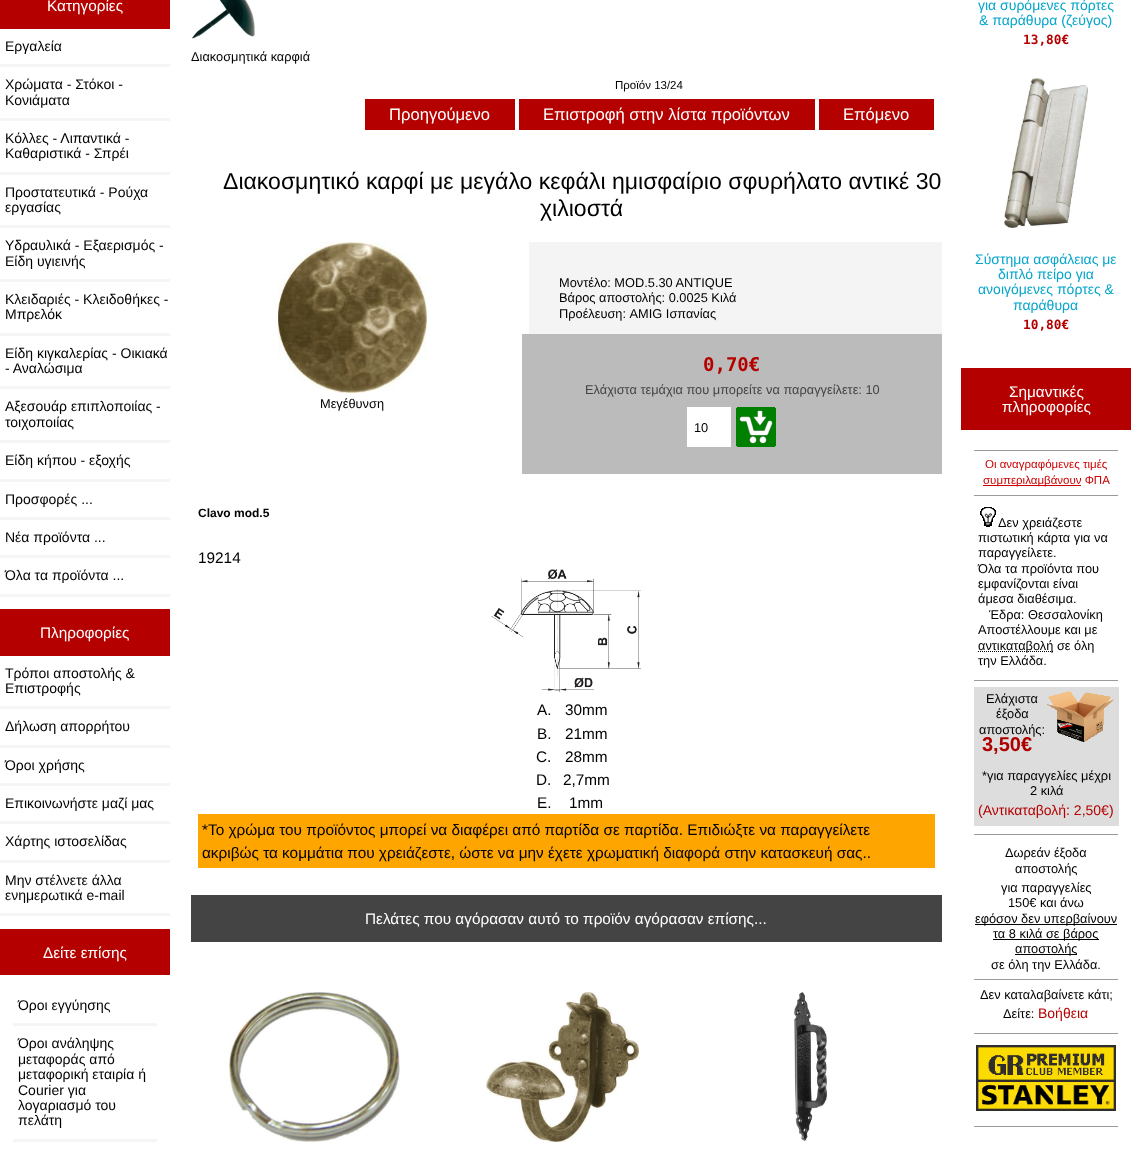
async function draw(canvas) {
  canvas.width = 1131;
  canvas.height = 1155;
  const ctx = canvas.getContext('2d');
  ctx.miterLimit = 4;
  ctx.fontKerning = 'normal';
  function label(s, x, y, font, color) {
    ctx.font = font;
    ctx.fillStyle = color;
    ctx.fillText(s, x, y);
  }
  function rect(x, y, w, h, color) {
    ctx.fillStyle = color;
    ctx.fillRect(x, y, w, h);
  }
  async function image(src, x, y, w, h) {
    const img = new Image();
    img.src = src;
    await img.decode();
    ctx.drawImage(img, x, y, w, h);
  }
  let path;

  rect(0, 0, 1131, 1155, '#fff');
  rect(0, 0, 170, 29, '#b50000');
  label('Κατηγορίες', 47, 11, '15.35px Liberation Sans', '#fff');
  rect(0, 64, 170, 3, '#f5f5f5');
  label('Εργαλεία', 5, 51, '14px Liberation Sans', '#000');
  rect(0, 118, 170, 3, '#f5f5f5');
  label('Χρώματα - Στόκοι -', 5, 89, '14px Liberation Sans', '#000');
  label('Κονιάματα', 5, 105, '14px Liberation Sans', '#000');
  rect(0, 172, 170, 3, '#f5f5f5');
  label('Κόλλες - Λιπαντικά -', 5, 143, '14px Liberation Sans', '#000');
  label('Καθαριστικά - Σπρέι', 5, 158, '14px Liberation Sans', '#000');
  rect(0, 225, 170, 3, '#f5f5f5');
  label('Προστατευτικά - Ρούχα', 5, 197, '14px Liberation Sans', '#000');
  label('εργασίας', 5, 212, '14px Liberation Sans', '#000');
  rect(0, 279, 170, 3, '#f5f5f5');
  label('Υδραυλικά - Εξαερισμός -', 5, 250, '14px Liberation Sans', '#000');
  label('Είδη υγιεινής', 5, 266, '14px Liberation Sans', '#000');
  rect(0, 333, 170, 3, '#f5f5f5');
  label('Κλειδαριές - Κλειδοθήκες -', 5, 304, '14px Liberation Sans', '#000');
  label('Μπρελόκ', 5, 319, '14px Liberation Sans', '#000');
  rect(0, 386, 170, 3, '#f5f5f5');
  label('Είδη κιγκαλερίας - Οικιακά', 5, 358, '14px Liberation Sans', '#000');
  label('- Αναλώσιμα', 5, 373, '14px Liberation Sans', '#000');
  rect(0, 440, 170, 3, '#f5f5f5');
  label('Αξεσουάρ επιπλοποιίας -', 5, 411, '14px Liberation Sans', '#000');
  label('τοιχοποιίας', 5, 427, '14px Liberation Sans', '#000');
  rect(0, 479, 170, 3, '#f5f5f5');
  label('Είδη κήπου - εξοχής', 5, 465, '14px Liberation Sans', '#000');
  rect(0, 517, 170, 3, '#f5f5f5');
  label('Προσφορές ...', 5, 504, '14px Liberation Sans', '#000');
  rect(0, 555, 170, 3, '#f5f5f5');
  label('Νέα προϊόντα ...', 5, 542, '14px Liberation Sans', '#000');
  rect(0, 594, 170, 3, '#f5f5f5');
  label('Όλα τα προϊόντα ...', 5, 580, '14px Liberation Sans', '#000');
  rect(0, 609, 170, 47, '#b50000');
  label('Πληροφορίες', 40, 638, '15.35px Liberation Sans', '#fff');
  rect(0, 706, 170, 3, '#f5f5f5');
  label('Τρόποι αποστολής &', 5, 678, '14px Liberation Sans', '#000');
  label('Επιστροφής', 5, 693, '14px Liberation Sans', '#000');
  rect(0, 745, 170, 3, '#f5f5f5');
  label('Δήλωση απορρήτου', 5, 731, '14px Liberation Sans', '#000');
  rect(0, 783, 170, 3, '#f5f5f5');
  label('Όροι χρήσης', 5, 770, '14px Liberation Sans', '#000');
  rect(0, 821, 170, 3, '#f5f5f5');
  label('Επικοινωνήστε μαζί μας', 5, 808, '14px Liberation Sans', '#000');
  rect(0, 860, 170, 3, '#f5f5f5');
  label('Χάρτης ιστοσελίδας', 5, 846, '14px Liberation Sans', '#000');
  rect(0, 913, 170, 3, '#f5f5f5');
  label('Μην στέλνετε άλλα', 5, 885, '14px Liberation Sans', '#000');
  label('ενημερωτικά e-mail', 5, 900, '14px Liberation Sans', '#000');
  rect(0, 929, 170, 46, '#b50000');
  label('Δείτε επίσης', 43, 958, '15.35px Liberation Sans', '#fff');
  rect(13, 1023, 144, 3, '#f5f5f5');
  label('Όροι εγγύησης', 18, 1010, '14px Liberation Sans', '#000');
  rect(13, 1139, 144, 3, '#f5f5f5');
  label('Όροι ανάληψης', 18, 1048, '14px Liberation Sans', '#000');
  label('μεταφοράς από', 18, 1064, '14px Liberation Sans', '#000');
  label('μεταφορική εταιρία ή', 18, 1079, '14px Liberation Sans', '#000');
  label('Courier για', 18, 1095, '14px Liberation Sans', '#000');
  label('λογαριασμό του', 18, 1110, '14px Liberation Sans', '#000');
  label('πελάτη', 18, 1125, '14px Liberation Sans', '#000');
  await image('assets/img1.png', 192, 0, 63, 39);
  label('Διακοσμητικά καρφιά', 191, 61, '12.8px Liberation Sans', '#000');
  label('Προϊόν 13/24', 615, 89, '11.5px Liberation Sans', '#000');
  rect(365, 99, 150, 31, '#b50000');
  label('Προηγούμενο', 389, 120, '16.6px Liberation Sans', '#fff');
  rect(519, 99, 296, 31, '#b50000');
  label('Επιστροφή στην λίστα προϊόντων', 543, 120, '16.6px Liberation Sans', '#fff');
  rect(819, 99, 115, 31, '#b50000');
  label('Επόμενο', 843, 120, '16.6px Liberation Sans', '#fff');
  label('Διακοσμητικό καρφί με μεγάλο κεφάλι ημισφαίριο σφυρήλατο αντικέ 30', 223, 189, '23.05px Liberation Sans', '#000');
  label('χιλιοστά', 540, 216, '23.05px Liberation Sans', '#000');
  rect(529, 242, 413, 92, '#f4f4f4');
  label('Μοντέλο: MOD.5.30 ANTIQUE', 559, 287, '12.8px Liberation Sans', '#000');
  label('Βάρος αποστολής: 0.0025 Κιλά', 559, 302, '12.8px Liberation Sans', '#000');
  label('Προέλευση: AMIG Ισπανίας', 559, 318, '12.8px Liberation Sans', '#000');
  await image('assets/img2.png', 278, 242, 149, 151);
  label('Μεγέθυνση', 320, 408, '12.8px Liberation Sans', '#000');
  rect(522, 334, 420, 140, '#bbb');
  label('0,70€', 703, 371, 'bold 19px DejaVu Sans Mono', '#b50000');
  label('Ελάχιστα τεμάχια που μπορείτε να παραγγείλετε: 10', 585, 394, '12.8px Liberation Sans', '#444');
  rect(687, 407, 44, 40, '#fff');
  label('10', 694, 432, '12.8px Liberation Sans', '#000');
  await image('assets/img3.png', 736, 407, 40, 40);
  label('Clavo mod.5', 198, 517, 'bold 12px Liberation Sans', '#000');
  label('19214', 198, 563, '15.35px Liberation Sans', '#000');
  await image('assets/img4.png', 491, 569, 150, 123);
  label('A.', 537, 715, '15.35px Liberation Sans', '#000');
  label('30mm', 565, 715, '15.35px Liberation Sans', '#000');
  label('B.', 537, 739, '15.35px Liberation Sans', '#000');
  label('21mm', 565, 739, '15.35px Liberation Sans', '#000');
  label('C.', 536, 762, '15.35px Liberation Sans', '#000');
  label('28mm', 565, 762, '15.35px Liberation Sans', '#000');
  label('D.', 536, 785, '15.35px Liberation Sans', '#000');
  label('2,7mm', 563, 785, '15.35px Liberation Sans', '#000');
  label('E.', 537, 808, '15.35px Liberation Sans', '#000');
  label('1mm', 569, 808, '15.35px Liberation Sans', '#000');
  rect(198, 814, 737, 54, '#ffa500');
  label('*Το χρώμα του προϊόντος μπορεί να διαφέρει από παρτίδα σε παρτίδα. Επιδιώξτε να παραγγείλετε', 202, 835, '15.35px Liberation Sans', '#000');
  label('ακριβώς τα κομμάτια που χρειάζεστε, ώστε να μην έχετε χρωματική διαφορά στην κατασκευή σας..', 202, 858, '15.35px Liberation Sans', '#000');
  rect(191, 895, 751, 47, '#444');
  label('Πελάτες που αγόρασαν αυτό το προϊόν αγόρασαν επίσης...', 365, 924, '15.35px Liberation Sans', '#fff');
  await image('assets/img5.png', 229, 992, 171, 150);
  await image('assets/img6.png', 486, 992, 153, 150);
  await image('assets/img7.png', 794, 992, 33, 149);
  label('για συρόμενες πόρτες', 978, 10, '14px Liberation Sans', '#05a5cb');
  label('& παράθυρα (ζεύγος)', 979, 25, '14px Liberation Sans', '#05a5cb');
  label('13,80€', 1023, 44, 'bold 12.8px DejaVu Sans Mono', '#b50000');
  await image('assets/img8.png', 1004, 78, 84, 150);
  label('Σύστημα ασφάλειας με', 975, 264, '14px Liberation Sans', '#05a5cb');
  label('διπλό πείρο για', 998, 279, '14px Liberation Sans', '#05a5cb');
  label('ανοιγόμενες πόρτες &', 978, 294, '14px Liberation Sans', '#05a5cb');
  label('παράθυρα', 1013, 310, '14px Liberation Sans', '#05a5cb');
  label('10,80€', 1023, 329, 'bold 12.8px DejaVu Sans Mono', '#b50000');
  rect(961, 368, 170, 62, '#b50000');
  label('Σημαντικές', 1009, 397, '15.35px Liberation Sans', '#fff');
  label('πληροφορίες', 1002, 412, '15.35px Liberation Sans', '#fff');
  rect(974, 450, 144, 1, '#9a9a9a');
  label('Οι αναγραφόμενες τιμές', 985, 468, '11.5px Liberation Sans', '#c00');
  rect(983, 485, 98, 1, '#c00');
  label('συμπεριλαμβάνουν ΦΠΑ', 983, 484, '11.5px Liberation Sans', '#c00');
  rect(974, 495, 144, 1, '#9a9a9a');
  await image('assets/img9.png', 980, 507, 16, 20);
  label('Δεν χρειάζεστε', 998, 527, '12.8px Liberation Sans', '#000');
  label('πιστωτική κάρτα για να', 978, 542, '12.8px Liberation Sans', '#000');
  label('παραγγείλετε.', 978, 557, '12.8px Liberation Sans', '#000');
  label('Όλα τα προϊόντα που', 978, 573, '12.8px Liberation Sans', '#000');
  label('εμφανίζονται είναι', 978, 588, '12.8px Liberation Sans', '#000');
  label('άμεσα διαθέσιμα.', 978, 603, '12.8px Liberation Sans', '#000');
  label('Έδρα: Θεσσαλονίκη', 989, 619, '12.8px Liberation Sans', '#000');
  label('Αποστέλλουμε και με', 978, 634, '12.8px Liberation Sans', '#000');
  path = new Path2D('M978 651.5H1053.5');
  ctx.strokeStyle = '#000';
  ctx.setLineDash([1, 1]);
  ctx.stroke(path);
  label('αντικαταβολή σε όλη', 978, 650, '12.8px Liberation Sans', '#000');
  label('την Ελλάδα.', 978, 665, '12.8px Liberation Sans', '#000');
  rect(974, 680, 144, 1, '#9a9a9a');
  rect(974, 687, 145, 139, '#ddd');
  label('Ελάχιστα', 986, 703, '12.8px Liberation Sans', '#000');
  label('έξοδα', 996, 718, '12.8px Liberation Sans', '#000');
  label('αποστολής:', 979, 734, '12.8px Liberation Sans', '#000');
  await image('assets/img10.png', 1046, 691, 69, 51);
  label('3,50€', 982, 751, 'bold 20px Liberation Sans', '#af0000');
  label('*για παραγγελίες μέχρι', 982, 780, '12.8px Liberation Sans', '#000');
  label('2 κιλά', 1030, 795, '12.8px Liberation Sans', '#000');
  label('(Αντικαταβολή: 2,50€)', 978, 815, '14px Liberation Sans', '#b50000');
  rect(974, 834, 144, 1, '#9a9a9a');
  label('Δωρεάν έξοδα', 1005, 857, '12.8px Liberation Sans', '#000');
  label('αποστολής', 1015, 873, '12.8px Liberation Sans', '#000');
  label('για παραγγελίες', 1001, 892, '12.8px Liberation Sans', '#000');
  label('150€ και άνω', 1008, 907, '12.8px Liberation Sans', '#000');
  rect(975, 924, 142, 1, '#000');
  label('εφόσον δεν υπερβαίνουν', 975, 923, '12.8px Liberation Sans', '#000');
  rect(993, 939, 106, 1, '#000');
  label('τα 8 κιλά σε βάρος', 993, 938, '12.8px Liberation Sans', '#000');
  rect(1015, 954, 62, 1, '#000');
  label('αποστολής', 1015, 953, '12.8px Liberation Sans', '#000');
  label('σε όλη την Ελλάδα.', 991, 969, '12.8px Liberation Sans', '#000');
  rect(974, 979, 144, 1, '#9a9a9a');
  label('Δεν καταλαβαίνετε κάτι;', 980, 999, '12.8px Liberation Sans', '#000');
  label('Δείτε:', 1003, 1018, '12.8px Liberation Sans', '#000');
  label('Βοήθεια', 1038, 1018, '14px Liberation Sans', '#b50000');
  rect(974, 1033, 144, 1, '#9a9a9a');
  await image('assets/img11.png', 976, 1045, 140, 66);
  rect(974, 1126, 144, 1, '#9a9a9a');
}

draw(document.querySelector('canvas'));
